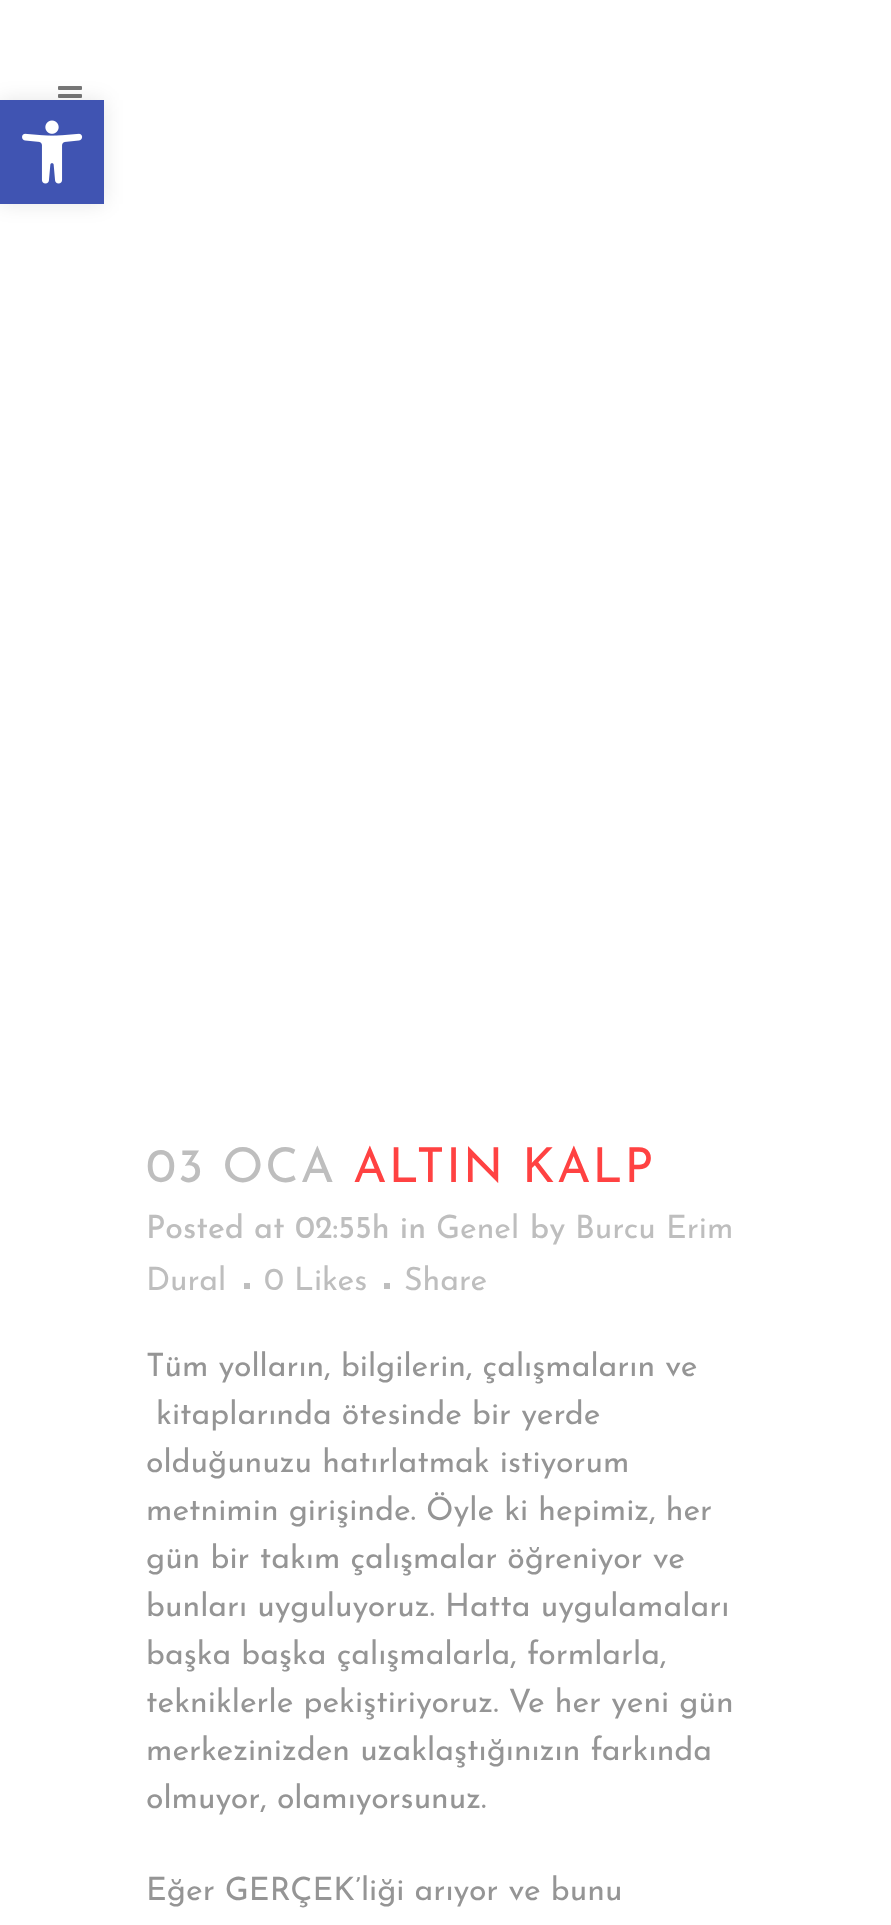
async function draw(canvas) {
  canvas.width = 891;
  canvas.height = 1925;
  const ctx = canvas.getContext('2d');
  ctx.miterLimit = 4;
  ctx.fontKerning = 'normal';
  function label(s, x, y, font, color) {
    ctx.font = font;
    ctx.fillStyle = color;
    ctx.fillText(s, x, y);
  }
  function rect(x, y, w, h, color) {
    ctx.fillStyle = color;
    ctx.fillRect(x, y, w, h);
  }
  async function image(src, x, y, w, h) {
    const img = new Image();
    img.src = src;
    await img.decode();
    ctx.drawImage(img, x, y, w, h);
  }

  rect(0, 0, 891, 1925, '#fff');
  await image('assets/img2.png', 58, 86, 24, 12);
  ctx.fillStyle = '#0000001a';
  ctx.filter = 'blur(10px)';
  ctx.beginPath();
  ctx.rect(0, 100, 104, 104);
  ctx.fill();
  ctx.filter = 'none';
  rect(0, 100, 104, 104, '#4054b2');
  await image('assets/img1.png', 22, 120, 61, 64);
  ctx.letterSpacing = '2px';
  label('03 OCA', 146, 1182, '48px Josefin Sans', '#bebebe');
  label('ALTIN KALP', 353, 1182, '48px Josefin Sans', '#ff4242');
  ctx.letterSpacing = '0px';
  label('Posted at 02:55h in', 146, 1238, '500 32px Josefin Sans', '#bebebe');
  label('Genel', 436, 1238, '32px Josefin Sans', '#bebebe');
  label('by', 530, 1238, '500 32px Josefin Sans', '#bebebe');
  label('Burcu Erim', 575, 1238, '32px Josefin Sans', '#bebebe');
  label('Dural', 146, 1290, '32px Josefin Sans', '#bebebe');
  rect(244, 1283, 6, 6, '#bebebe');
  label('0 Likes', 264, 1290, '32px Josefin Sans', '#bebebe');
  rect(384, 1283, 6, 6, '#bebebe');
  label('Share', 404, 1290, '32px Josefin Sans', '#bebebe');
  label('Tüm yolların, bilgilerin, çalışmaların ve', 146, 1376, '32px Josefin Sans', '#959595');
  label('kitaplarında ötesinde bir yerde', 156, 1424, '32px Josefin Sans', '#959595');
  label('olduğunuzu hatırlatmak istiyorum', 146, 1472, '32px Josefin Sans', '#959595');
  label('metnimin girişinde. Öyle ki hepimiz, her', 146, 1520, '32px Josefin Sans', '#959595');
  label('gün bir takım çalışmalar öğreniyor ve', 146, 1568, '32px Josefin Sans', '#959595');
  label('bunları uyguluyoruz. Hatta uygulamaları', 146, 1616, '32px Josefin Sans', '#959595');
  label('başka başka çalışmalarla, formlarla,', 146, 1664, '32px Josefin Sans', '#959595');
  label('tekniklerle pekiştiriyoruz. Ve her yeni gün', 146, 1712, '32px Josefin Sans', '#959595');
  label('merkezinizden uzaklaştığınızın farkında', 146, 1760, '32px Josefin Sans', '#959595');
  label('olmuyor, olamıyorsunuz.', 146, 1808, '32px Josefin Sans', '#959595');
  label('Eğer GERÇEK’liği arıyor ve bunu', 146, 1900, '32px Josefin Sans', '#959595');
}

draw(document.querySelector('canvas'));
